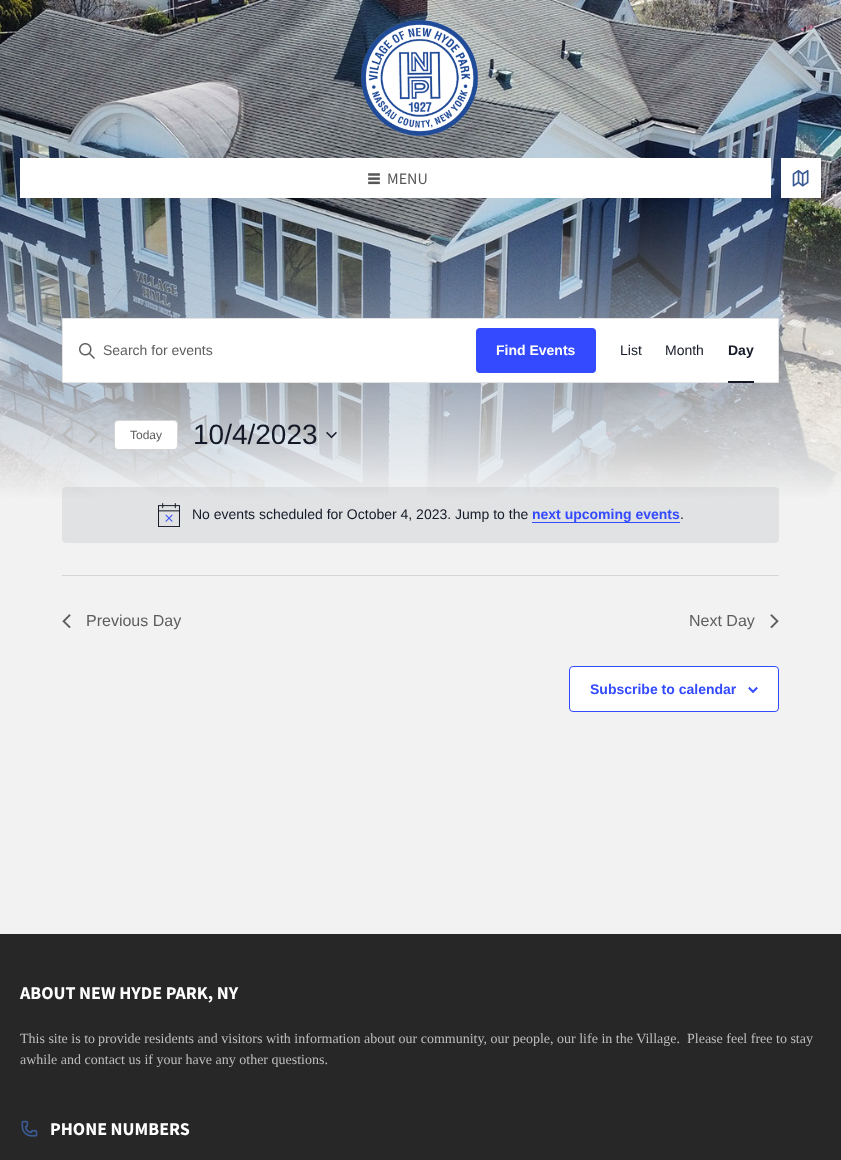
async function draw(canvas) {
  canvas.width = 841;
  canvas.height = 1160;
  const ctx = canvas.getContext('2d');
  ctx.miterLimit = 4;
  ctx.fontKerning = 'normal';
  function label(s, x, y, font, color) {
    ctx.font = font;
    ctx.fillStyle = color;
    ctx.fillText(s, x, y);
  }
  function rect(x, y, w, h, color) {
    ctx.fillStyle = color;
    ctx.fillRect(x, y, w, h);
  }
  function roundedRect(x, y, w, h, r, color) {
    ctx.fillStyle = color;
    ctx.beginPath();
    ctx.roundRect(x, y, w, h, r);
    ctx.fill();
  }
  async function image(src, x, y, w, h) {
    const img = new Image();
    img.src = src;
    await img.decode();
    ctx.drawImage(img, x, y, w, h);
  }

  rect(0, 0, 841, 1160, '#f2f2f2');
  await image('assets/img1.png', 0, 0, 841, 500);
  await image('assets/img2.png', 361, 20, 117, 116);
  rect(20, 158, 751, 40, '#fff');
  await image('assets/img3.png', 368, 173, 12, 12);
  label('MENU', 387, 184, '16px Source Sans Pro', '#565656');
  rect(781, 158, 40, 40, '#fff');
  await image('assets/img4.png', 792, 169, 17, 18);
  ctx.beginPath();
  ctx.rect(62.5, 318.5, 716, 64);
  ctx.fill();
  ctx.strokeStyle = '#e4e4e4';
  ctx.stroke();
  await image('assets/img5.png', 79, 343, 16, 16);
  label('Search for events', 103, 355, '14px Liberation Sans', '#5d5d5d');
  roundedRect(476, 328, 120, 45, 4, '#334aff');
  label('Find Events', 496, 355, 'bold 14px Liberation Sans', '#fff');
  label('List', 620, 355, '14px Liberation Sans', '#141827');
  label('Month', 665, 355, '14px Liberation Sans', '#141827');
  label('Day', 728, 355, 'bold 14px Liberation Sans', '#141827');
  rect(728, 381, 26, 2, '#141827');
  await image('assets/img6.png', 62, 426, 11, 17);
  await image('assets/img7.png', 88, 426, 11, 17);
  ctx.fillStyle = '#fff';
  ctx.beginPath();
  ctx.roundRect(114.5, 420.5, 63, 29, 3.5);
  ctx.fill();
  ctx.strokeStyle = '#d5d5d5';
  ctx.stroke();
  label('Today', 130, 439, '12px Liberation Sans', '#5d5d5d');
  label('10/4/2023', 193, 444, '28px Liberation Sans', '#141827');
  await image('assets/img8.png', 326, 431, 11, 8);
  roundedRect(62, 487, 717, 56, 4, '#14182712');
  await image('assets/img9.png', 158, 503, 22, 24);
  label('No events scheduled for October 4, 2023. Jump to the', 192, 519, '14px Liberation Sans', '#141827');
  label('next upcoming events', 532, 519, 'bold 14px Liberation Sans', '#334aff');
  rect(532, 522, 148, 1, '#334aff');
  label('.', 680, 519, '14px Liberation Sans', '#141827');
  rect(62, 575, 717, 1, '#d5d5d5');
  await image('assets/img10.png', 62, 614, 9, 14);
  label('Previous Day', 86, 626, '16px Liberation Sans', '#5d5d5d');
  label('Next Day', 689, 626, '16px Liberation Sans', '#5d5d5d');
  await image('assets/img11.png', 770, 614, 9, 14);
  ctx.fillStyle = '#fff';
  ctx.beginPath();
  ctx.roundRect(569.5, 666.5, 209, 45, 3.5);
  ctx.fill();
  ctx.strokeStyle = '#334aff';
  ctx.stroke();
  label('Subscribe to calendar', 590, 694, 'bold 14px Liberation Sans', '#334aff');
  await image('assets/img12.png', 748, 687, 10, 6);
  rect(0, 934, 841, 226, '#272727');
  label('ABOUT NEW HYDE PARK, NY', 20, 999, 'bold 18px Source Sans Pro', '#fff');
  label('This site is to', 20, 1043, '14px Liberation Serif', '#bebebe');
  label('provide residents and visitors with information about our community, our people, our life in the Village.  Please feel free to stay', 98, 1043, '14px Liberation Serif', '#bebebe');
  label('awhile and contact us if your have any other questions.', 20, 1064, '14px Liberation Serif', '#bebebe');
  await image('assets/img13.png', 21, 1120, 17, 17);
  label('PHONE NUMBERS', 50, 1135, 'bold 18px Source Sans Pro', '#fff');
}

draw(document.querySelector('canvas'));
